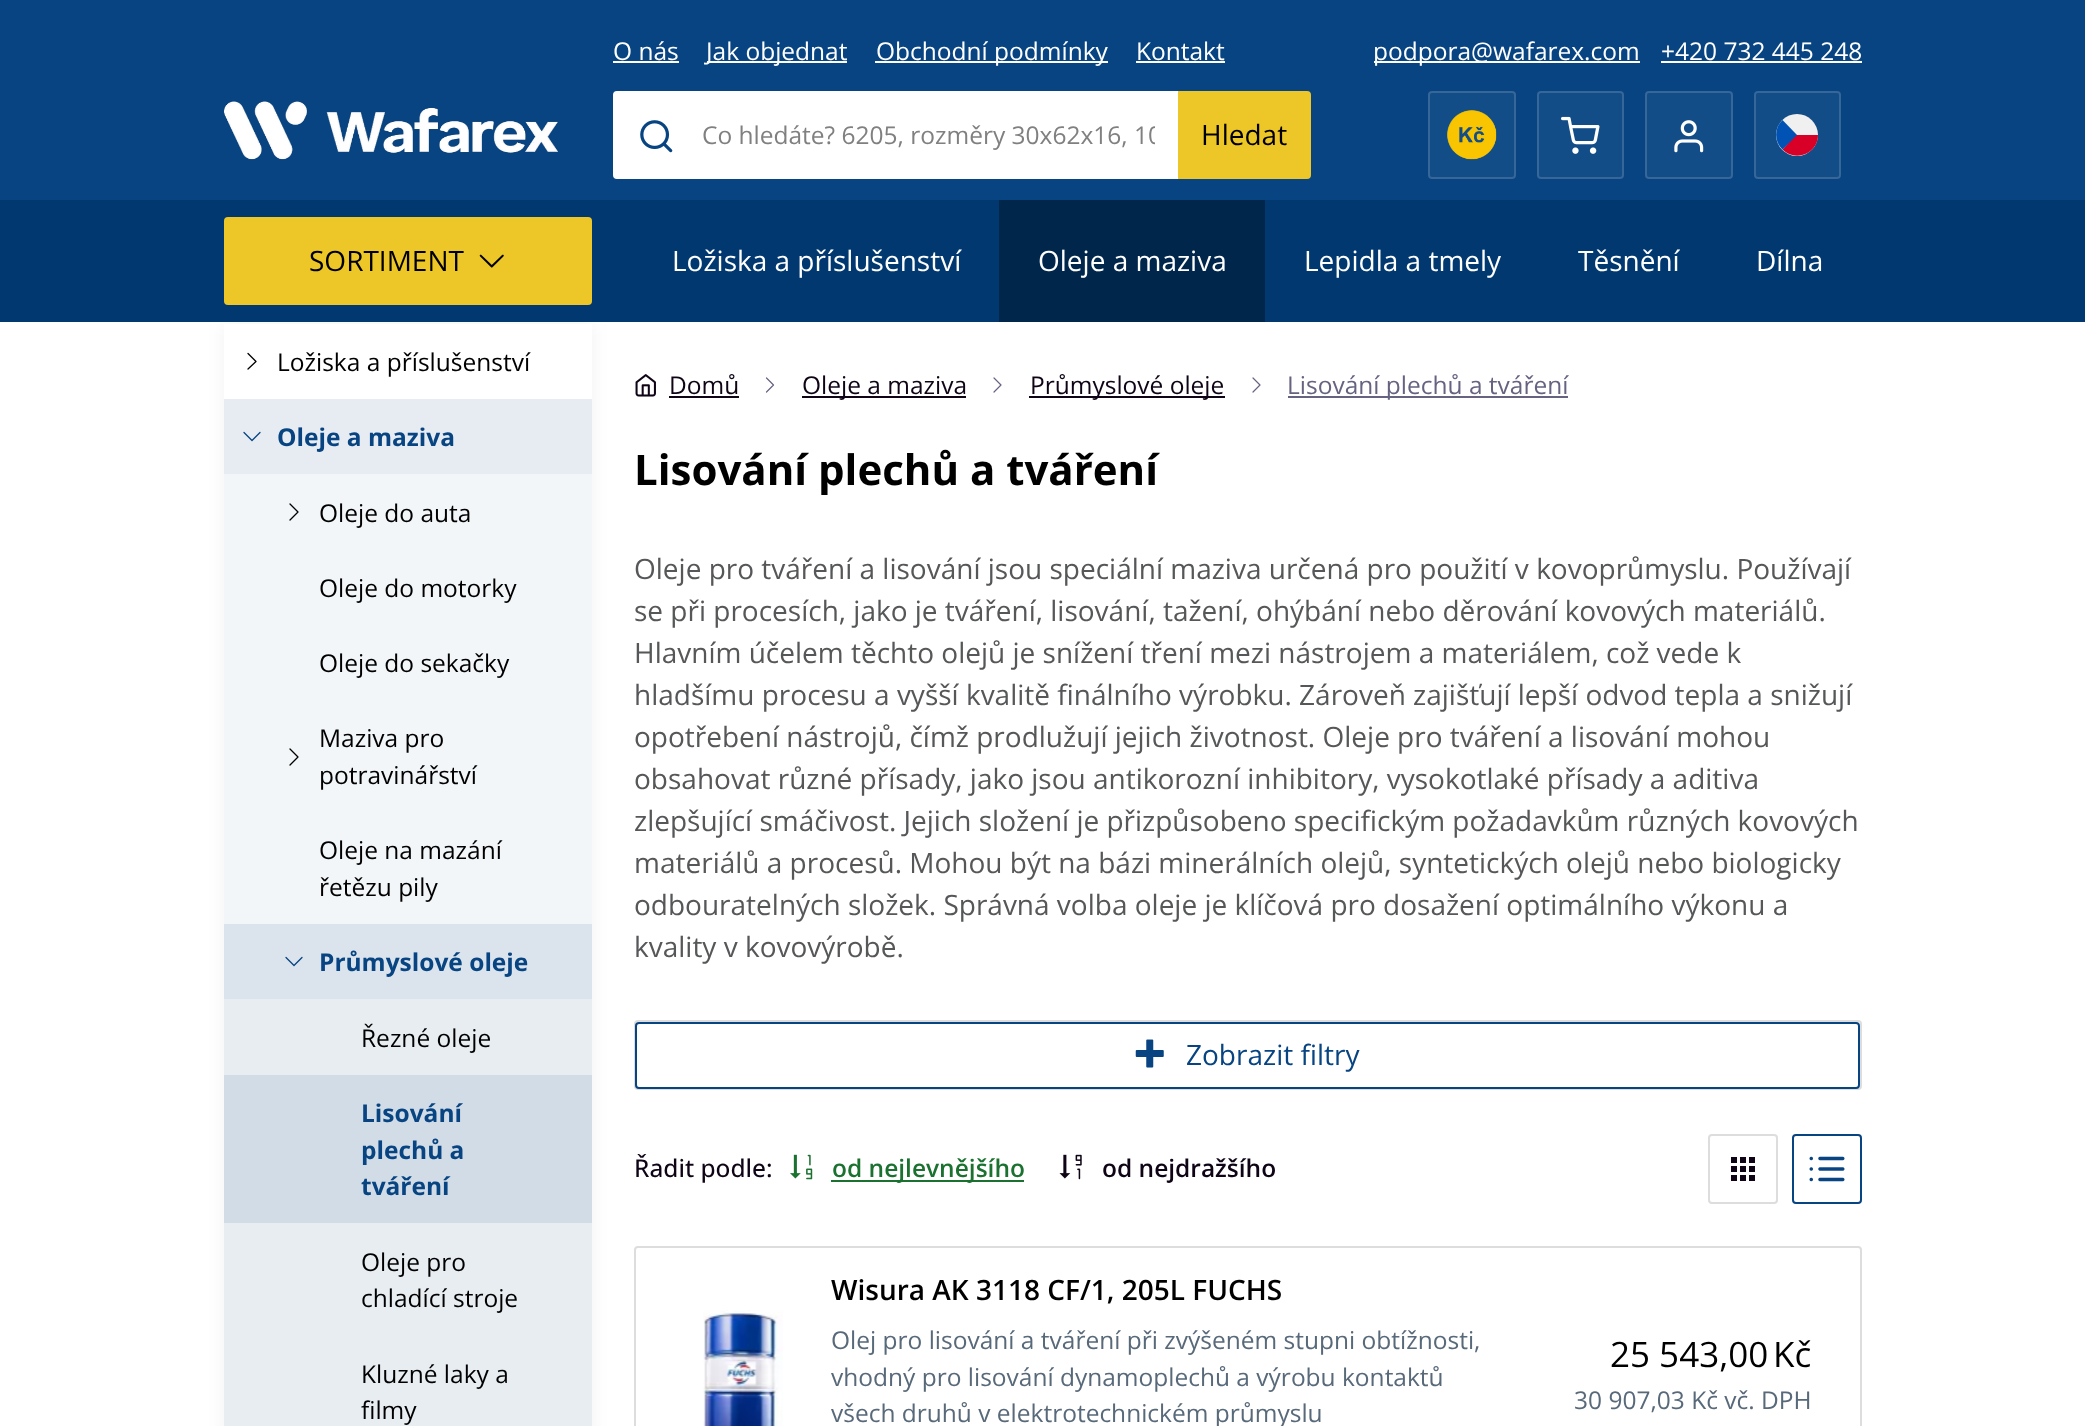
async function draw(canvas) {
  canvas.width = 2085;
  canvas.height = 1426;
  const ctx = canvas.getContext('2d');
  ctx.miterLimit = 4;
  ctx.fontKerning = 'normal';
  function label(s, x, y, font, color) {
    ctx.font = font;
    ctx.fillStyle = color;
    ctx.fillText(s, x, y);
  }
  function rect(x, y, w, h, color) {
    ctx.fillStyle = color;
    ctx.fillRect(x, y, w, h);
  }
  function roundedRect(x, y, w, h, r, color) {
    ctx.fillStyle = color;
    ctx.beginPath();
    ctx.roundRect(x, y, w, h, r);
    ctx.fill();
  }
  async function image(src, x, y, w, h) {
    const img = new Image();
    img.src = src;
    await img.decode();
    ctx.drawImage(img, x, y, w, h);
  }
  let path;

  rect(0, 0, 2085, 1426, '#fff');
  rect(0, 0, 2085, 200, '#074481');
  label('O nás', 613, 60, '24.5px Open Sans', '#fff');
  rect(613, 61, 66, 2, '#fff');
  rect(707, 61, 140, 2, '#fff');
  label('Jak objednat', 706, 60, '24.5px Open Sans', '#fff');
  rect(875, 61, 233, 2, '#fff');
  label('Obchodní podmínky', 876, 60, '24.5px Open Sans', '#fff');
  label('Kontakt', 1136, 60, '24.5px Open Sans', '#fff');
  rect(1136, 61, 89, 2, '#fff');
  ctx.beginPath();
  ctx.roundRect(614, 92, 563, 86, [3, 0, 0, 3]);
  ctx.fill();
  ctx.strokeStyle = '#fff';
  ctx.lineWidth = 2;
  ctx.stroke();
  await image('assets/img1.png', 640, 120, 33, 33);
  ctx.save();
  ctx.beginPath();
  ctx.rect(702, 117, 453, 34);
  ctx.clip();
  label('Co hledáte? 6205, rozměry 30x62x16, 10', 702, 144, '24.5px Open Sans', '#808080');
  ctx.restore();
  ctx.fillStyle = '#edc728';
  ctx.beginPath();
  ctx.roundRect(1179, 92, 131, 86, [0, 3, 3, 0]);
  ctx.fill();
  ctx.strokeStyle = '#edc728';
  ctx.stroke();
  label('Hledat', 1201, 145, '28px Open Sans', '#000');
  rect(1374, 61, 266, 2, '#fff');
  label('podpora@wafarex.com', 1373, 60, '24.5px Open Sans', '#fff');
  label('+420 732 445 248', 1661, 60, '24.5px Open Sans', '#fff');
  rect(1661, 61, 201, 2, '#fff');
  roundedRect(1428, 91, 88, 88, 4, '#134d87');
  ctx.beginPath();
  ctx.roundRect(1429, 92, 86, 86, 3);
  ctx.strokeStyle = '#ffffff26';
  ctx.stroke();
  await image('assets/img2.png', 1447, 110, 50, 50);
  roundedRect(1537, 91, 87, 88, 4, '#134d87');
  ctx.beginPath();
  ctx.roundRect(1538, 92, 85, 86, 3);
  ctx.stroke();
  await image('assets/img3.png', 1561, 116, 39, 38);
  roundedRect(1645, 91, 88, 88, 4, '#134d87');
  ctx.beginPath();
  ctx.roundRect(1646, 92, 86, 86, 3);
  ctx.stroke();
  await image('assets/img4.png', 1674, 120, 30, 33);
  roundedRect(1754, 91, 87, 88, 4, '#134d87');
  ctx.beginPath();
  ctx.roundRect(1755, 92, 85, 86, 3);
  ctx.stroke();
  ctx.fillStyle = '#f0f0f0';
  ctx.beginPath();
  ctx.arc(1797, 135, 21, 0, 2 * Math.PI);
  ctx.fill();
  ctx.fillStyle = '#d80027';
  path = new Path2D('M1795.5 135L1782.5 149.5C1795.5 162.5 1818 153.5 1818 135Z');
  ctx.fill(path);
  ctx.fillStyle = '#0052b4';
  path = new Path2D('M1782.5 120C1774 128 1774 141.5 1782.5 149.5L1797 135Z');
  ctx.fill(path);
  await image('assets/img5.png', 224, 101, 334, 59);
  ctx.fillStyle = '#0000000d';
  ctx.filter = 'blur(9px)';
  ctx.beginPath();
  ctx.rect(224, 324, 368, 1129);
  ctx.fill();
  ctx.filter = 'none';
  rect(0, 200, 2085, 122, '#01386f');
  roundedRect(224, 217, 368, 88, 4, '#edc728');
  label('SORTIMENT', 309, 271, '28px Open Sans', '#000');
  await image('assets/img6.png', 479, 254, 25, 14);
  label('Ložiska a příslušenství', 672, 271, '28px Open Sans', '#fff');
  rect(999, 200, 266, 122, '#00264b');
  label('Oleje a maziva', 1038, 271, '28px Open Sans', '#fff');
  label('Lepidla a tmely', 1304, 271, '28px Open Sans', '#fff');
  label('Těsnění', 1578, 271, '28px Open Sans', '#fff');
  label('Dílna', 1756, 271, '28px Open Sans', '#fff');
  rect(224, 324, 368, 75, '#fff');
  path = new Path2D('M248 369L256 361.5L248 353.5');
  ctx.strokeStyle = '#000';
  ctx.lineWidth = 1.3;
  ctx.lineCap = 'round';
  ctx.lineJoin = 'round';
  ctx.stroke(path);
  label('Ložiska a příslušenství', 277, 371, '24.5px Open Sans', '#000');
  rect(224, 399, 368, 75, '#e6ecf2');
  path = new Path2D('M244 432.5L252 440.5L260 432.5');
  ctx.strokeStyle = '#074481';
  ctx.stroke(path);
  label('Oleje a maziva', 277, 446, 'bold 24.5px Open Sans', '#074481');
  rect(224, 474, 368, 450, '#f3f6f9');
  path = new Path2D('M290 520L298 512L290 504');
  ctx.strokeStyle = '#000';
  ctx.stroke(path);
  label('Oleje do auta', 319, 522, '24.5px Open Sans', '#000');
  label('Oleje do motorky', 319, 597, '24.5px Open Sans', '#000');
  label('Oleje do sekačky', 319, 672, '24.5px Open Sans', '#000');
  label('Maziva pro', 319, 747, '24.5px Open Sans', '#000');
  path = new Path2D('M290 765L298 757L290 749');
  ctx.stroke(path);
  label('potravinářství', 319, 784, '24.5px Open Sans', '#000');
  label('Oleje na mazání', 319, 859, '24.5px Open Sans', '#000');
  label('řetězu pily', 319, 896, '24.5px Open Sans', '#000');
  rect(224, 924, 368, 75, '#dbe4ed');
  path = new Path2D('M286 957.5L294 965.5L302 957.5');
  ctx.strokeStyle = '#074481';
  ctx.stroke(path);
  label('Průmyslové oleje', 319, 971, 'bold 24.5px Open Sans', '#074481');
  rect(224, 999, 368, 427, '#e8edf2');
  label('Řezné oleje', 361, 1047, '24.5px Open Sans', '#000');
  rect(224, 1075, 368, 148, '#d1dce7');
  label('Lisování', 361, 1122, 'bold 24.5px Open Sans', '#074481');
  label('plechů a', 361, 1159, 'bold 24.5px Open Sans', '#074481');
  label('tváření', 361, 1195, 'bold 24.5px Open Sans', '#074481');
  label('Oleje pro', 361, 1271, '24.5px Open Sans', '#000');
  label('chladící stroje', 361, 1307, '24.5px Open Sans', '#000');
  label('Kluzné laky a', 361, 1383, '24.5px Open Sans', '#000');
  label('filmy', 361, 1419, '24.5px Open Sans', '#000');
  await image('assets/img7.png', 635, 374, 21, 23);
  label('Domů', 669, 394, '24.5px Open Sans', '#0f0416');
  rect(669, 396, 70, 2, '#0f0416');
  path = new Path2D('M766.5 392L773.5 385L766.5 378');
  ctx.strokeStyle = '#666381';
  ctx.lineWidth = 1.2;
  ctx.stroke(path);
  rect(802, 396, 164, 2, '#0f0416');
  label('Oleje a maziva', 802, 394, '24.5px Open Sans', '#0f0416');
  path = new Path2D('M994 392L1001 385L994 378');
  ctx.stroke(path);
  rect(1029, 396, 196, 2, '#0f0416');
  label('Průmyslové oleje', 1030, 394, '24.5px Open Sans', '#0f0416');
  path = new Path2D('M1253 392L1260 385L1253 378');
  ctx.stroke(path);
  rect(1288, 396, 280, 2, '#666381');
  label('Lisování plechů a tváření', 1287, 394, '24.5px Open Sans', '#666381');
  label('Lisování plechů a tváření', 634, 485, 'bold 42px Open Sans', '#000');
  label('Oleje pro tváření a lisování jsou speciální maziva určená pro použití v kovoprůmyslu. Používají', 634, 579, '28px Open Sans', '#565758');
  label('se při procesích, jako je tváření, lisování, tažení, ohýbání nebo děrování kovových materiálů.', 634, 621, '28px Open Sans', '#565758');
  label('Hlavním účelem těchto olejů je snížení tření mezi nástrojem a materiálem, což vede k', 634, 663, '28px Open Sans', '#565758');
  label('hladšímu procesu a vyšší kvalitě finálního výrobku. Zároveň zajišťují lepší odvod tepla a snižují', 634, 705, '28px Open Sans', '#565758');
  label('opotřebení nástrojů, čímž prodlužují jejich životnost. Oleje pro tváření a lisování mohou', 634, 747, '28px Open Sans', '#565758');
  label('obsahovat různé přísady, jako jsou antikorozní inhibitory, vysokotlaké přísady a aditiva', 634, 789, '28px Open Sans', '#565758');
  label('zlepšující smáčivost. Jejich složení je přizpůsobeno specifickým požadavkům různých kovových', 634, 831, '28px Open Sans', '#565758');
  label('materiálů a procesů. Mohou být na bázi minerálních olejů, syntetických olejů nebo biologicky', 634, 873, '28px Open Sans', '#565758');
  label('odbouratelných složek. Správná volba oleje je klíčová pro dosažení optimálního výkonu a', 634, 915, '28px Open Sans', '#565758');
  label('kvality v kovovýrobě.', 634, 957, '28px Open Sans', '#565758');
  ctx.beginPath();
  ctx.roundRect(635, 1021, 1226, 68, 3);
  ctx.strokeStyle = '#ddd';
  ctx.lineWidth = 2;
  ctx.lineJoin = 'miter';
  ctx.stroke();
  ctx.beginPath();
  ctx.roundRect(636, 1023, 1223, 65, 3);
  ctx.strokeStyle = '#074481';
  ctx.stroke();
  await image('assets/img8.png', 1135, 1039, 29, 29);
  label('Zobrazit filtry', 1186, 1065, '28px Open Sans', '#074481');
  label('Řadit podle:', 634, 1177, '500 24.5px Open Sans', '#0f0416');
  await image('assets/img9.png', 790, 1154, 23, 26);
  rect(831, 1180, 193, 2, '#1b712f');
  label('od nejlevnějšího', 832, 1177, '600 24.5px Open Sans', '#1b712f');
  await image('assets/img10.png', 1059, 1154, 23, 26);
  label('od nejdražšího', 1102, 1177, '600 24.5px Open Sans', '#0f0416');
  ctx.beginPath();
  ctx.roundRect(1709, 1135, 68, 68, 3);
  ctx.strokeStyle = '#ddd';
  ctx.stroke();
  await image('assets/img11.png', 1731, 1157, 24, 24);
  ctx.beginPath();
  ctx.roundRect(1793, 1135, 68, 68, 3);
  ctx.strokeStyle = '#074481';
  ctx.stroke();
  await image('assets/img12.png', 1809, 1156, 36, 26);
  ctx.beginPath();
  ctx.roundRect(635, 1247, 1226, 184, 3);
  ctx.strokeStyle = '#ddd';
  ctx.stroke();
  await image('assets/img13.png', 703, 1310, 80, 116);
  label('Wisura AK 3118 CF/1, 205L FUCHS', 831, 1300, '600 28px Open Sans', '#000');
  label('Olej pro lisování a tváření při zvýšeném stupni obtížnosti,', 831, 1349, '24.5px Open Sans', '#58697a');
  label('vhodný pro lisování dynamoplechů a výrobu kontaktů', 831, 1386, '24.5px Open Sans', '#58697a');
  label('všech druhů v elektrotechnickém průmyslu', 831, 1422, '24.5px Open Sans', '#58697a');
  label('25 543,00', 1610, 1367, '35px Open Sans', '#000');
  label('Kč', 1773, 1367, '35px Open Sans', '#000');
  label('30 907,03 Kč vč. DPH', 1574, 1409, '24.5px Open Sans', '#58697a');
}

draw(document.querySelector('canvas'));
